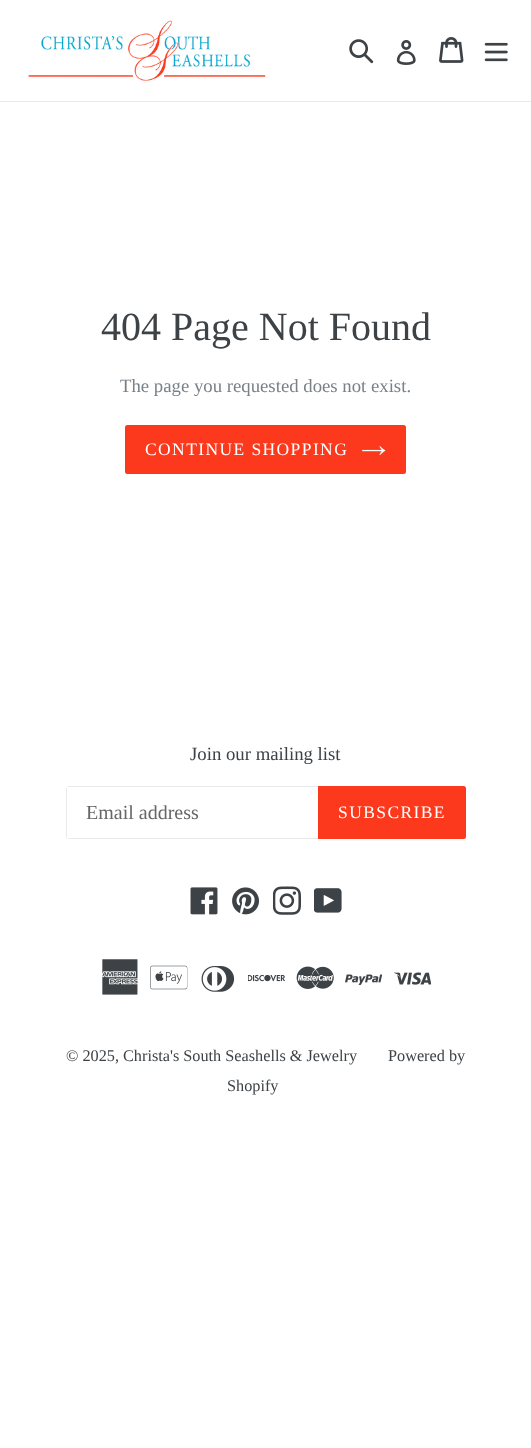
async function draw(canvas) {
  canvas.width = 531;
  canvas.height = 1448;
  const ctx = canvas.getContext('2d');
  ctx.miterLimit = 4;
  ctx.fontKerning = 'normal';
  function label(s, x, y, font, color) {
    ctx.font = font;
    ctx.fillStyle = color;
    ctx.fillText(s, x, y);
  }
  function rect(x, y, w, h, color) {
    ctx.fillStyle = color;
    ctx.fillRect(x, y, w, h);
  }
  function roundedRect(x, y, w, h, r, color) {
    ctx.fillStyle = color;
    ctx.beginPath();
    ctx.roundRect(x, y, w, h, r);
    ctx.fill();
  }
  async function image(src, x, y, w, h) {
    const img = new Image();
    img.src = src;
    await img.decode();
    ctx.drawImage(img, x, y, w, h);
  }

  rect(0, 0, 531, 1448, '#fff');
  rect(0, 101, 531, 1, '#e8e9eb');
  await image('assets/img1.png', 28, 20, 238, 61);
  await image('assets/img2.png', 349, 39, 25, 25);
  await image('assets/img3.png', 396, 40, 20, 25);
  await image('assets/img4.png', 439, 37, 25, 26);
  await image('assets/img5.png', 484, 42, 24, 20);
  label('404 Page Not Found', 101, 340, '40px Liberation Serif', '#3d4246');
  label('The page you requested does not exist.', 120, 392, '18.75px Liberation Serif', '#788188');
  roundedRect(125, 425, 281, 49, 2.5, '#fc391d');
  ctx.letterSpacing = '1.4px';
  label('CONTINUE SHOPPING', 145, 455, '17.5px Liberation Serif', '#fff');
  await image('assets/img6.png', 362, 446, 24, 9);
  ctx.letterSpacing = '0px';
  label('Join our mailing list', 190, 760, '18.75px Liberation Serif', '#3d4246');
  rect(68, 786, 250, 1, '#e8e9eb');
  rect(68, 838, 250, 1, '#e8e9eb');
  rect(66, 788, 1, 50, '#e8e9eb');
  label('Email address', 86, 819, '20px Liberation Serif', '#666');
  ctx.fillStyle = '#fc391d';
  ctx.beginPath();
  ctx.roundRect(318, 786, 148, 53, [0, 2.5, 2.5, 0]);
  ctx.fill();
  ctx.letterSpacing = '1.4px';
  label('SUBSCRIBE', 338, 818, '17.5px Liberation Serif', '#fff');
  await image('assets/img7.png', 190, 887, 28, 28);
  await image('assets/img8.png', 232, 887, 27, 28);
  await image('assets/img9.png', 273, 886, 28, 29);
  await image('assets/img10.png', 314, 888, 28, 25);
  await image('assets/img11.png', 102, 959, 36, 36);
  await image('assets/img12.png', 150, 965, 38, 25);
  await image('assets/img13.png', 201, 966, 34, 26);
  await image('assets/img14.png', 248, 974, 37, 8);
  await image('assets/img15.png', 296, 966, 38, 23);
  await image('assets/img16.png', 345, 974, 38, 11);
  await image('assets/img17.png', 394, 972, 37, 13);
  ctx.letterSpacing = '0px';
  label('© 2025, Christa\'s South Seashells & Jewelry', 66, 1061, '16.25px Liberation Serif', '#3d4246');
  label('Powered by', 388, 1061, '16.25px Liberation Serif', '#3d4246');
  label('Shopify', 227, 1091, '16.25px Liberation Serif', '#3d4246');
}

draw(document.querySelector('canvas'));
